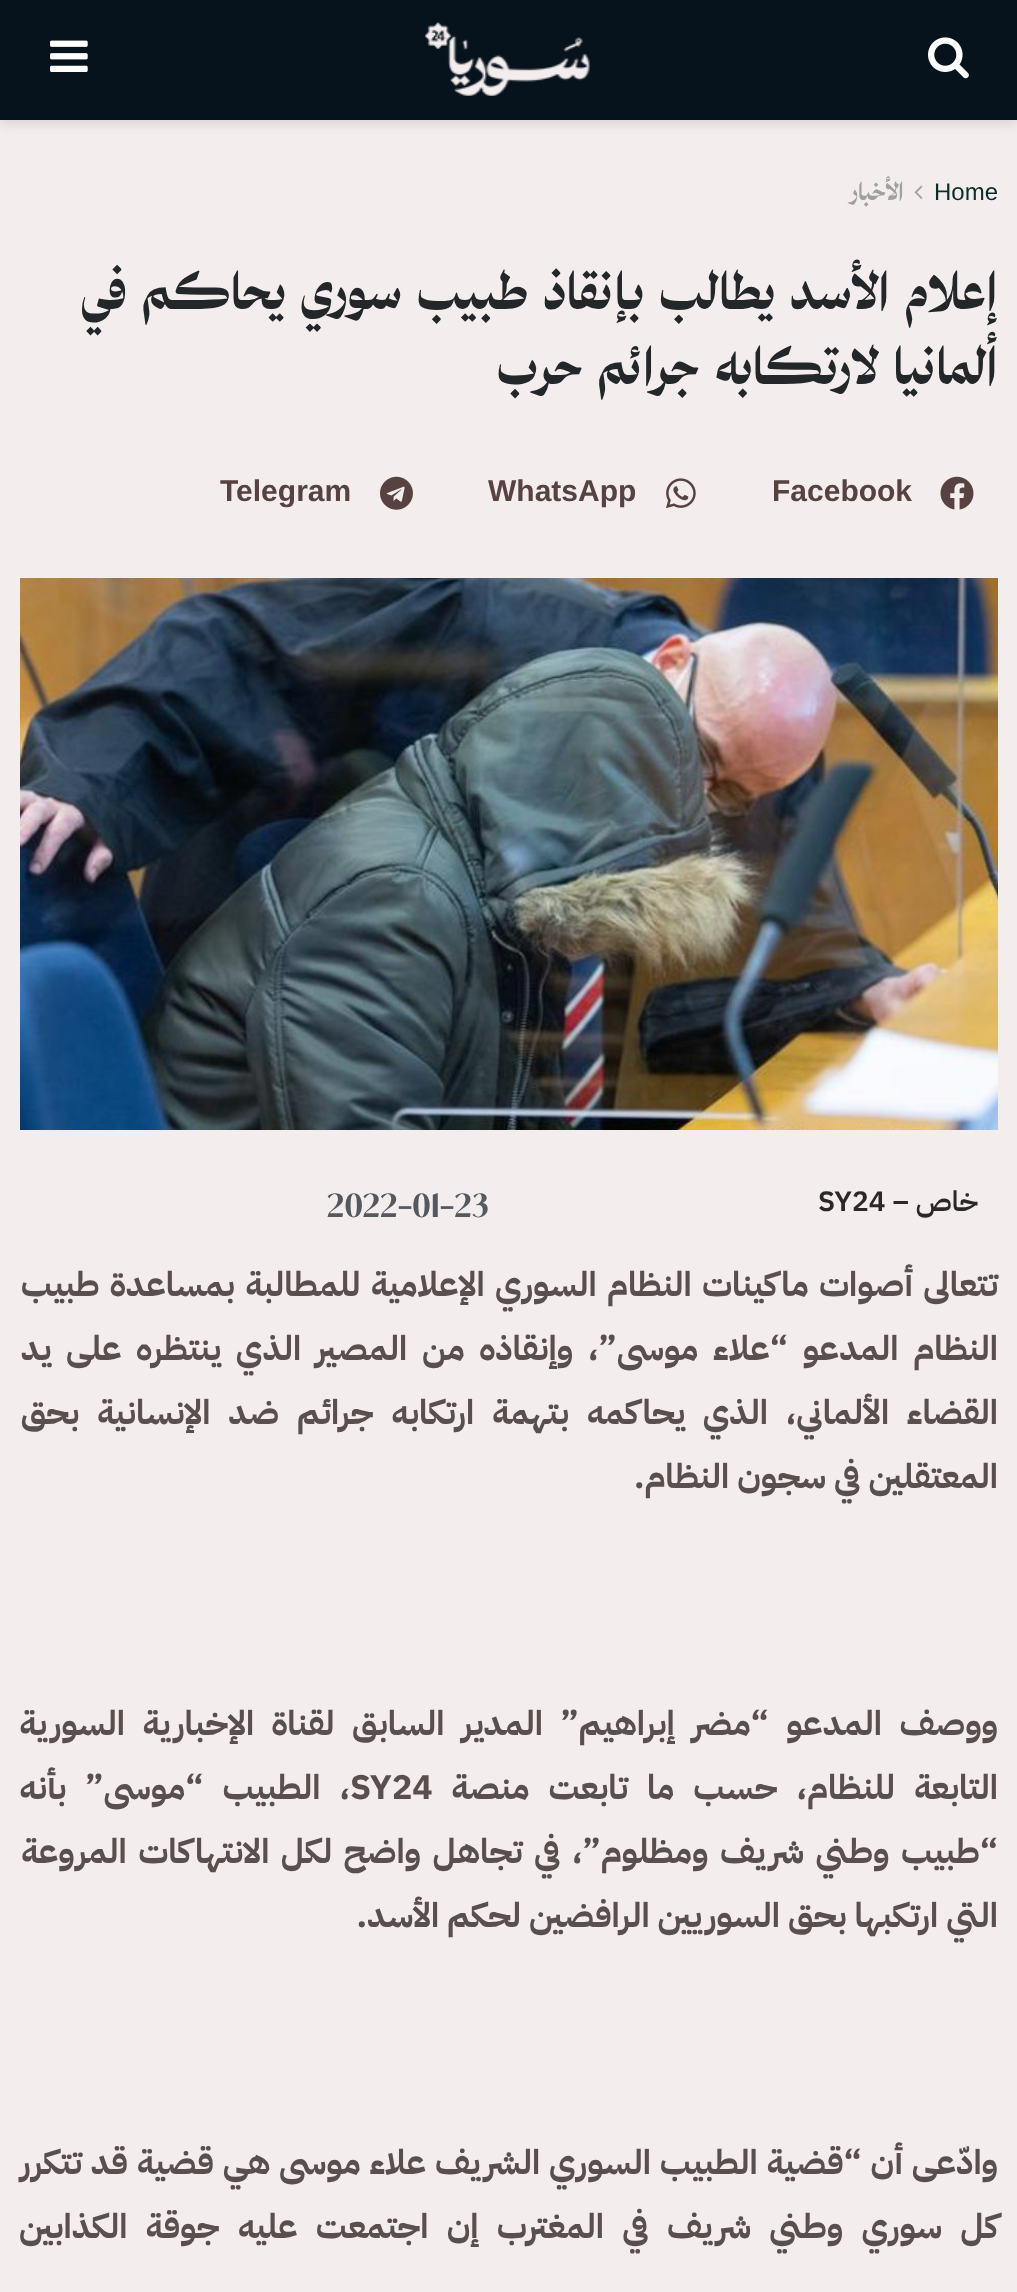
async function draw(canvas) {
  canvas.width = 1017;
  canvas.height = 2292;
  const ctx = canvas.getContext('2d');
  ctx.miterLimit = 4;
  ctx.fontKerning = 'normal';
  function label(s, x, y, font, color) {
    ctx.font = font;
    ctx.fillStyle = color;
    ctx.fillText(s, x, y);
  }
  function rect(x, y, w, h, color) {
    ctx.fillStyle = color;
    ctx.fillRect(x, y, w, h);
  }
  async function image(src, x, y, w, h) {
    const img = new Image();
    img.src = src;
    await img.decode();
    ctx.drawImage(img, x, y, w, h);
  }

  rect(0, 0, 1017, 2292, '#f3eded');
  ctx.fillStyle = '#0000001a';
  ctx.filter = 'blur(6px)';
  ctx.beginPath();
  ctx.rect(0, 4, 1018, 120);
  ctx.fill();
  ctx.filter = 'none';
  rect(0, 0, 1017, 120, '#06131c');
  await image('assets/img1.png', 928, 37, 41, 42);
  await image('assets/img2.png', 425, 22, 165, 74);
  await image('assets/img3.png', 50, 40, 38, 32);
  label('Home', 934, 200, '24px Liberation Sans', '#0a2e2a');
  await image('assets/img4.png', 914, 185, 9, 14);
  ctx.direction = 'rtl';
  label('الأخبار', 904, 200, 'bold 24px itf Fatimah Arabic', '#a0a0a0');
  ctx.letterSpacing = '-1px';
  ctx.wordSpacing = '6px';
  label('إعلام الأسد يطالب بإنقاذ طبيب سوري يحاكم في', 998, 309, 'bold 50px itf Fatimah Arabic', '#232729');
  ctx.wordSpacing = '6.75px';
  label('ألمانيا لارتكابه جرائم حرب', 998, 384, 'bold 50px itf Fatimah Arabic', '#232729');
  await image('assets/img5.png', 940, 476, 34, 34);
  ctx.letterSpacing = '0px';
  ctx.wordSpacing = '0px';
  ctx.direction = 'ltr';
  label('Facebook', 772, 501, 'bold 30px Liberation Sans', '#574141');
  await image('assets/img6.png', 666, 478, 30, 31);
  label('WhatsApp', 488, 501, 'bold 30px Liberation Sans', '#574141');
  await image('assets/img7.png', 380, 476, 33, 34);
  label('Telegram', 220, 501, 'bold 30px Liberation Sans', '#574141');
  await image('assets/img8.png', 20, 578, 978, 552);
  ctx.direction = 'rtl';
  label('خاص –', 978, 1211, '600 28px IBM Plex Sans Arabic', '#2c2828');
  ctx.direction = 'ltr';
  label('SY24', 818, 1211, '600 28px IBM Plex Sans Arabic', '#2c2828');
  label('2022-01-23', 327, 1217, 'bold 28px itf Fatimah Arabic', '#54595f');
  ctx.wordSpacing = '2.25px';
  ctx.direction = 'rtl';
  label('تتعالى أصوات ماكينات النظام السوري الإعلامية للمطالبة بمساعدة طبيب', 998, 1296, 'bold 34px IBM Plex Sans Arabic', '#5a4f4f');
  ctx.wordSpacing = '6.75px';
  label('النظام المدعو “علاء موسى”، وإنقاذه من المصير الذي ينتظره على يد', 998, 1360, 'bold 34px IBM Plex Sans Arabic', '#5a4f4f');
  ctx.wordSpacing = '9.75px';
  label('القضاء الألماني، الذي يحاكمه بتهمة ارتكابه جرائم ضد الإنسانية بحق', 998, 1424, 'bold 34px IBM Plex Sans Arabic', '#5a4f4f');
  ctx.wordSpacing = '0px';
  label('المعتقلين في سجون النظام.', 998, 1488, 'bold 34px IBM Plex Sans Arabic', '#5a4f4f');
  ctx.wordSpacing = '9.5px';
  label('ووصف المدعو “مضر إبراهيم” المدير السابق لقناة الإخبارية السورية', 998, 1735, 'bold 34px IBM Plex Sans Arabic', '#5a4f4f');
  ctx.wordSpacing = '11px';
  label('التابعة للنظام، حسب ما تابعت منصة', 998, 1799, 'bold 34px IBM Plex Sans Arabic', '#5a4f4f');
  ctx.wordSpacing = '0px';
  ctx.direction = 'ltr';
  label('SY24', 350, 1799, 'bold 34px IBM Plex Sans Arabic', '#5a4f4f');
  ctx.wordSpacing = '11px';
  ctx.direction = 'rtl';
  label('، الطبيب “موسى” بأنه', 350, 1799, 'bold 34px IBM Plex Sans Arabic', '#5a4f4f');
  ctx.wordSpacing = '3.5px';
  label('“طبيب وطني شريف ومظلوم”، في تجاهل واضح لكل الانتهاكات المروعة', 998, 1863, 'bold 34px IBM Plex Sans Arabic', '#5a4f4f');
  ctx.wordSpacing = '0px';
  label('التي ارتكبها بحق السوريين الرافضين لحكم الأسد.', 998, 1927, 'bold 34px IBM Plex Sans Arabic', '#5a4f4f');
  ctx.wordSpacing = '0.8px';
  label('وادّعى أن “قضية الطبيب السوري الشريف علاء موسى هي قضية قد تتكرر', 998, 2174, 'bold 34px IBM Plex Sans Arabic', '#5a4f4f');
  ctx.wordSpacing = '10.25px';
  label('كل سوري وطني شريف في المغترب إن اجتمعت عليه جوقة الكذابين', 998, 2238, 'bold 34px IBM Plex Sans Arabic', '#5a4f4f');
}

draw(document.querySelector('canvas'));
